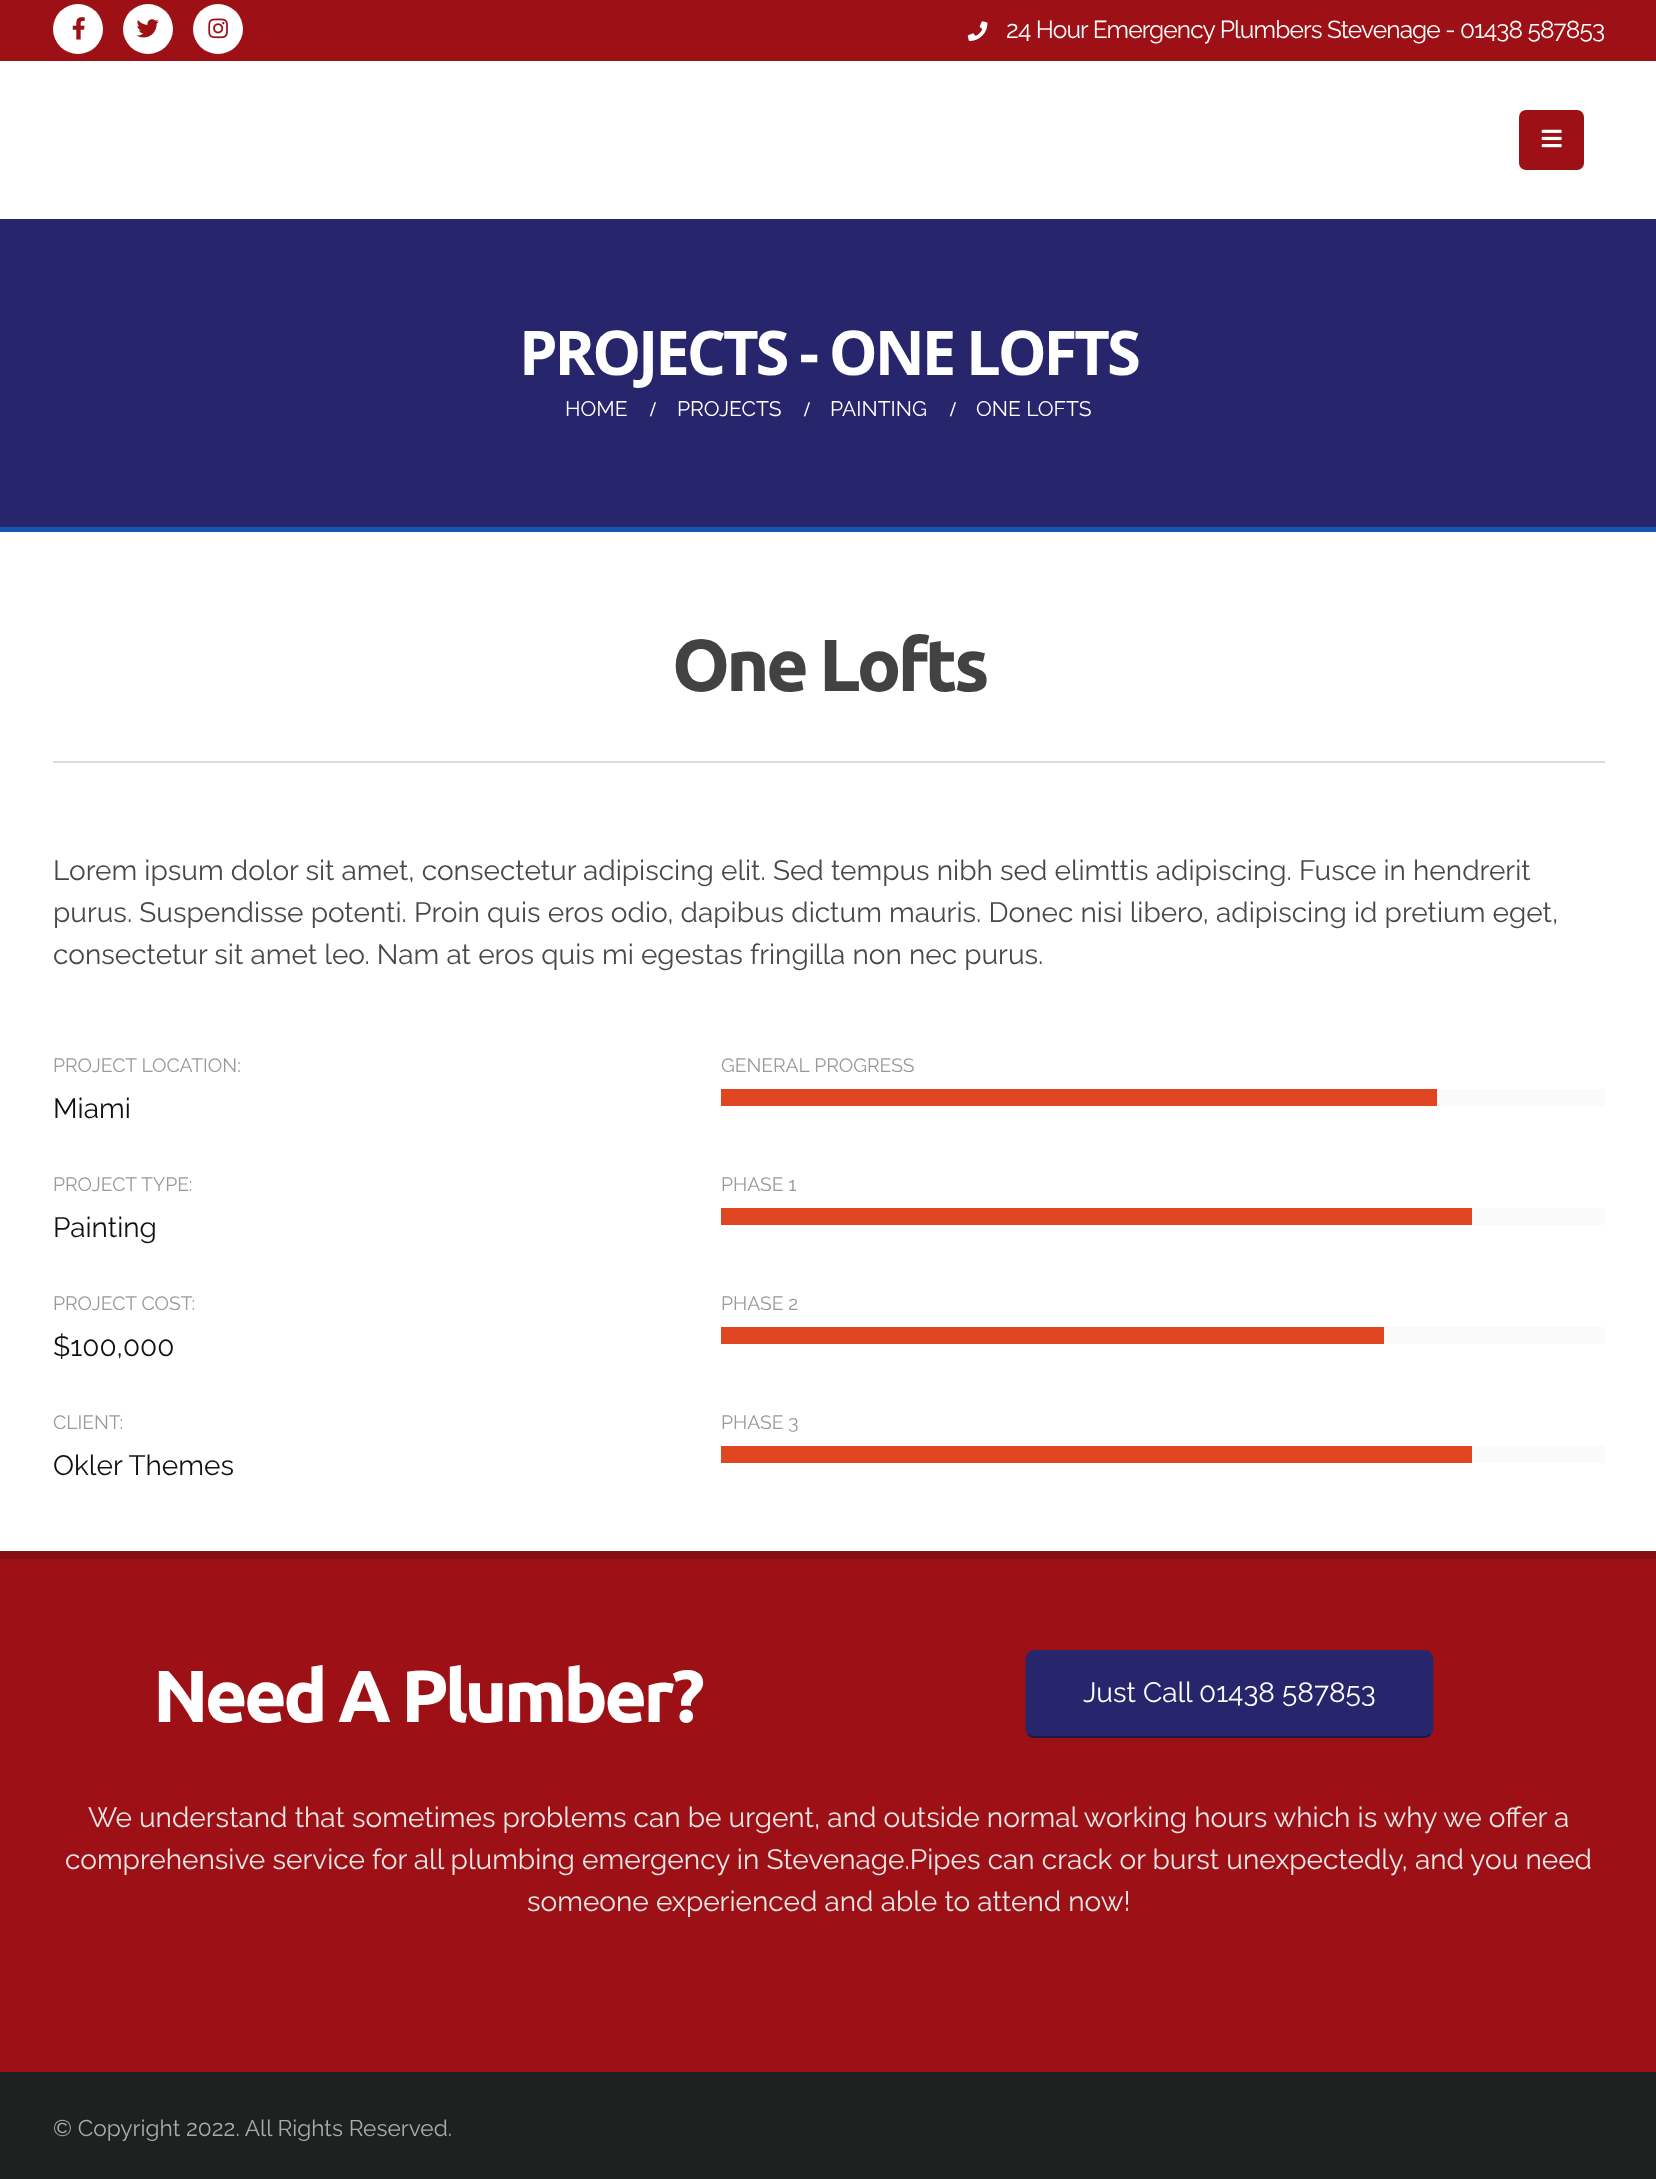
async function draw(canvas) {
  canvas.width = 1656;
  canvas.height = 2179;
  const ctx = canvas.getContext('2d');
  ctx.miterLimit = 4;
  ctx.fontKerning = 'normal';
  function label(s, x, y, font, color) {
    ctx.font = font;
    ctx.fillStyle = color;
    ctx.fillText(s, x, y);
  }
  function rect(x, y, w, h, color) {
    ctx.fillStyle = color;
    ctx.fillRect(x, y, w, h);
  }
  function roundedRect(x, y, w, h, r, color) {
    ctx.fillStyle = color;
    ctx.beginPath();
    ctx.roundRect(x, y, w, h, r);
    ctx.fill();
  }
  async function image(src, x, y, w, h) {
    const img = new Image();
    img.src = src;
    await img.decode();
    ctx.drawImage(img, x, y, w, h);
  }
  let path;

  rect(0, 0, 1656, 2179, '#fff');
  rect(0, 0, 1656, 61, '#9d1116');
  ctx.fillStyle = '#fff';
  ctx.beginPath();
  ctx.arc(78, 29, 25, 0, 2 * Math.PI);
  ctx.fill();
  await image('assets/img1.png', 72, 17, 13, 23);
  ctx.beginPath();
  ctx.arc(148, 29, 25, 0, 2 * Math.PI);
  ctx.fill();
  await image('assets/img2.png', 136, 19, 23, 19);
  ctx.beginPath();
  ctx.arc(218, 29, 25, 0, 2 * Math.PI);
  ctx.fill();
  await image('assets/img3.png', 208, 18, 20, 21);
  await image('assets/img4.png', 967, 21, 21, 20);
  ctx.letterSpacing = '-0.88px';
  label('24 Hour Emergency Plumbers Stevenage - 01438 587853', 1006, 38, '24.5px Raleway', '#fff');
  roundedRect(1519, 110, 65, 60, 7, '#9d1116');
  await image('assets/img5.png', 1541, 129, 21, 19);
  rect(0, 219, 1656, 308, '#27266c');
  rect(0, 527, 1656, 5, '#1356b1');
  ctx.letterSpacing = '-3.1px';
  label('PROJECTS - ONE LOFTS', 519, 375, 'bold 61.6px Open Sans', '#fff');
  ctx.letterSpacing = '0px';
  label('HOME', 565, 416, '21px Raleway', '#fff');
  label('/', 650, 416, 'bold 21px Liberation Serif', '#fff');
  label('PROJECTS', 677, 416, '21px Raleway', '#fff');
  label('/', 804, 416, 'bold 21px Liberation Serif', '#fff');
  label('PAINTING', 830, 416, '21px Raleway', '#fff');
  label('/', 950, 416, 'bold 21px Liberation Serif', '#fff');
  label('ONE LOFTS', 976, 416, '21px Raleway', '#fff');
  ctx.letterSpacing = '-3.7px';
  label('One Lofts', 672, 691, 'bold 73.5px Ubuntu', '#424242');
  rect(53, 761, 1552, 2, '#dbdbdb');
  ctx.letterSpacing = '0px';
  label('Lorem ipsum dolor sit amet, consectetur adipiscing elit. Sed tempus nibh sed elimttis adipiscing. Fusce in hendrerit', 53, 880, '28px Raleway', '#484848');
  label('purus. Suspendisse potenti. Proin quis eros odio, dapibus dictum mauris. Donec nisi libero, adipiscing id pretium eget,', 53, 922, '28px Raleway', '#484848');
  label('consectetur sit amet leo. Nam at eros quis mi egestas fringilla non nec purus.', 53, 964, '28px Raleway', '#484848');
  label('PROJECT LOCATION:', 53, 1072, '19.25px Raleway', '#999');
  label('Miami', 53, 1118, '28px Raleway', '#111');
  label('PROJECT TYPE:', 53, 1191, '19.25px Raleway', '#999');
  label('Painting', 53, 1237, '28px Raleway', '#111');
  label('PROJECT COST:', 53, 1310, '19.25px Raleway', '#999');
  label('$100,000', 53, 1356, '28px Raleway', '#111');
  label('CLIENT:', 53, 1429, '19.25px Raleway', '#999');
  label('Okler Themes', 53, 1475, '28px Raleway', '#111');
  label('GENERAL PROGRESS', 721, 1072, '19.25px Raleway', '#999');
  rect(1437, 1089, 168, 17, '#fafafa');
  rect(721, 1089, 716, 17, '#e04622');
  label('PHASE 1', 721, 1191, '19.25px Raleway', '#999');
  rect(1472, 1208, 133, 17, '#fafafa');
  rect(721, 1208, 751, 17, '#e04622');
  label('PHASE 2', 721, 1310, '19.25px Raleway', '#999');
  rect(1384, 1327, 221, 17, '#fafafa');
  rect(721, 1327, 663, 17, '#e04622');
  label('PHASE 3', 721, 1429, '19.25px Raleway', '#999');
  rect(1472, 1446, 133, 17, '#fafafa');
  rect(721, 1446, 751, 17, '#e04622');
  rect(0, 1559, 1656, 513, '#9d1116');
  rect(0, 1551, 1656, 8, '#860f13');
  ctx.letterSpacing = '-3.7px';
  label('Need A Plumber?', 153, 1722, 'bold 73.5px Ubuntu', '#fff');
  roundedRect(1026, 1650, 407, 88, 9, '#27266c');
  path = new Path2D('M1430 1734.5C1428.5 1736 1426.5 1737 1424.5 1737H1034C1032 1737 1030 1736 1028.5 1734.5');
  ctx.strokeStyle = '#1a1947';
  ctx.lineWidth = 1.8;
  ctx.stroke(path);
  path = new Path2D('M1028.5 1734.5C1027 1733 1026.5 1731 1026.5 1729V1659C1026.5 1657 1027 1655 1028.5 1653.5C1030 1652 1032 1651 1034 1651H1424.5C1426.5 1651 1428.5 1652 1430 1653.5C1431.5 1655 1432.5 1657 1432.5 1659V1729C1432.5 1731 1431.5 1733 1430 1734.5');
  ctx.strokeStyle = '#27266c';
  ctx.stroke(path);
  ctx.letterSpacing = '0px';
  label('Just Call 01438 587853', 1083, 1702, '28px Raleway', '#fff');
  label('We understand that sometimes problems can be urgent, and outside normal working hours which is why we offer a', 88, 1827, '28px Raleway', '#e6e6e6');
  label('comprehensive service for all plumbing emergency in Stevenage.Pipes can crack or burst unexpectedly, and you need', 65, 1869, '28px Raleway', '#e6e6e6');
  label('someone experienced and able to attend now!', 527, 1911, '28px Raleway', '#e6e6e6');
  rect(0, 2072, 1656, 107, '#1f2020');
  label('© Copyright 2022. All Rights Reserved.', 53, 2136, '22.7px Raleway', '#ababab');
}

draw(document.querySelector('canvas'));
